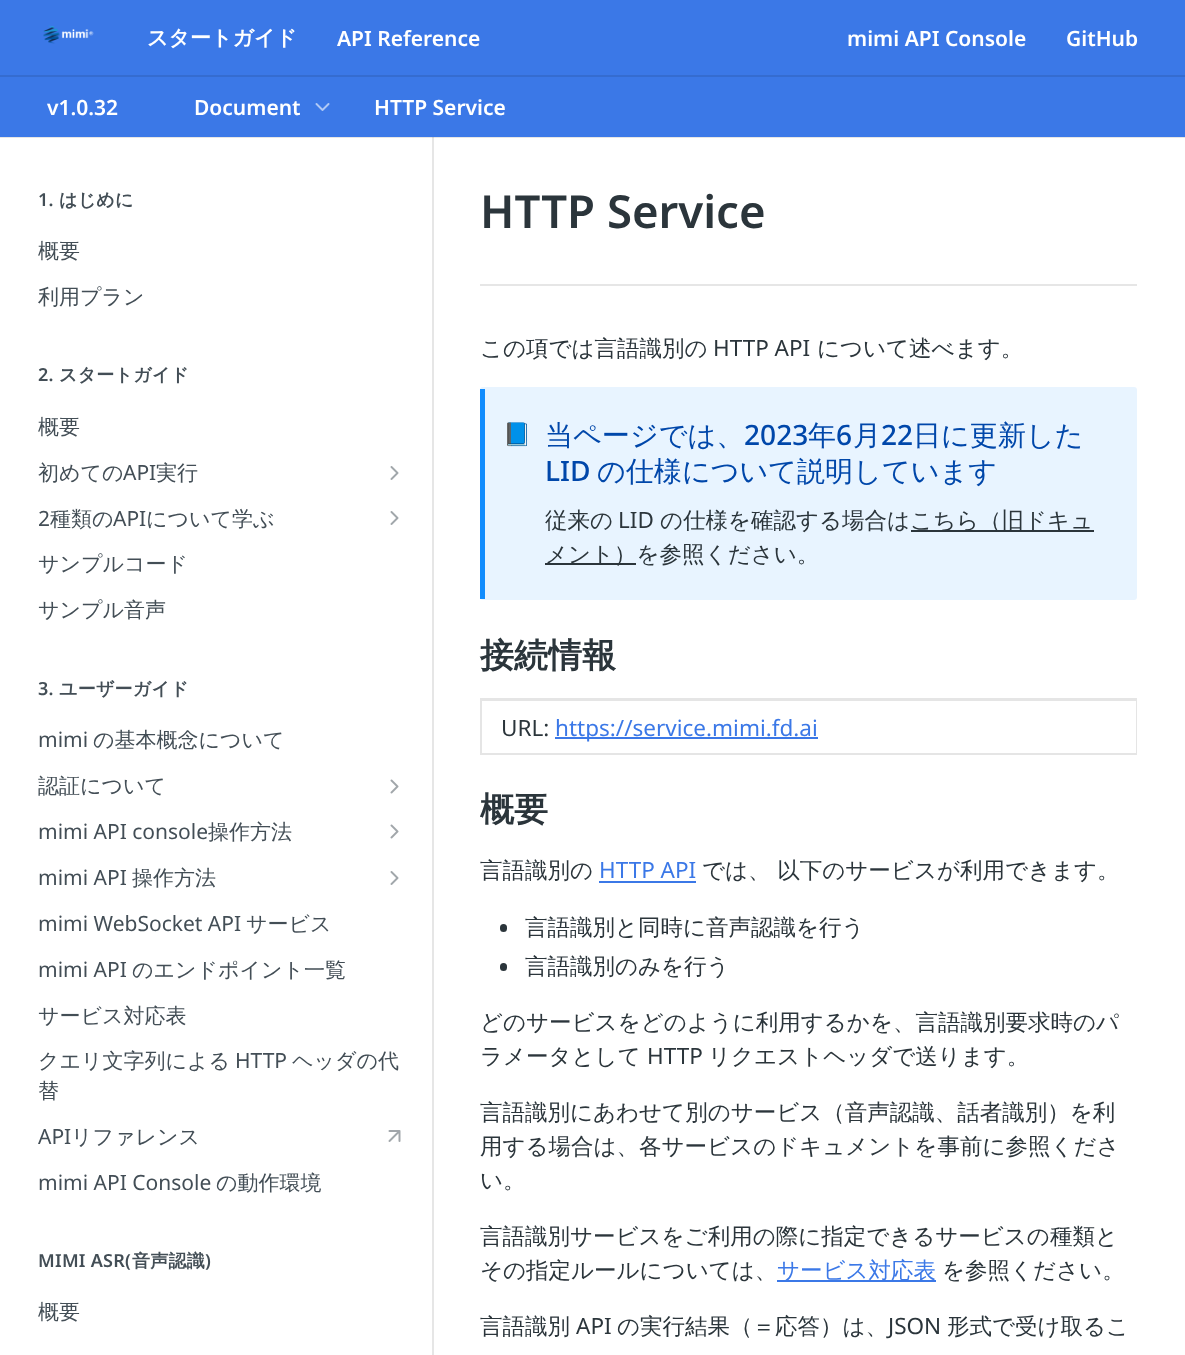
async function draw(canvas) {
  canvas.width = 1185;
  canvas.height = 1355;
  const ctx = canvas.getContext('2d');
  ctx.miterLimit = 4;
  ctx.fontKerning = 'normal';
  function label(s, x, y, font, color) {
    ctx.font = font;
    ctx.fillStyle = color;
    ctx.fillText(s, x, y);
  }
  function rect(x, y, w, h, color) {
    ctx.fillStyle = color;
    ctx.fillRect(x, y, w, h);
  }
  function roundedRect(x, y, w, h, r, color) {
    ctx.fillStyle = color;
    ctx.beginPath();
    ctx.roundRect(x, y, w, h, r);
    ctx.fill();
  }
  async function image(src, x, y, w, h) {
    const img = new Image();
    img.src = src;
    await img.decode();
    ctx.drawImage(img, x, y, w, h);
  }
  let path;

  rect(0, 0, 1185, 1355, '#fff');
  ctx.fillStyle = '#e6e6e6';
  path = new Path2D('M2 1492V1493H434V137H432V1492Z');
  ctx.fill(path);
  rect(0, 137, 1185, 1, '#0000001a');
  rect(0, 0, 1185, 137, '#3b78e7');
  rect(0, 75, 1185, 2, '#356cd0');
  await image('assets/img1.png', 43, 25, 51, 19);
  label('スタートガイド', 147, 45, 'bold 21px WenQuanYi Zen Hei', '#fff');
  label('API Reference', 337, 46, '600 21px Noto Sans', '#fff');
  label('mimi API Console', 847, 46, '600 21px Noto Sans', '#fff');
  label('GitHub', 1066, 46, '600 21px Noto Sans', '#fff');
  label('v1.0.32', 47, 115, '600 21px Noto Sans', '#fff');
  label('Document', 194, 115, '600 21px Noto Sans', '#fff');
  await image('assets/img2.png', 315, 103, 15, 8);
  label('HTTP Service', 374, 115, '600 21px Noto Sans', '#fff');
  ctx.letterSpacing = '0.25px';
  label('1.', 38, 206, '600 18px Noto Sans', '#434e56');
  label('はじめに', 59, 206, 'bold 18px WenQuanYi Zen Hei', '#434e56');
  ctx.letterSpacing = '0px';
  label('概要', 38, 258, '500 21px WenQuanYi Zen Hei', '#434e56');
  label('利用プラン', 38, 304, '500 21px WenQuanYi Zen Hei', '#434e56');
  ctx.letterSpacing = '0.25px';
  label('2.', 38, 381, '600 18px Noto Sans', '#434e56');
  label('スタートガイド', 59, 381, 'bold 18px WenQuanYi Zen Hei', '#434e56');
  ctx.letterSpacing = '0px';
  label('概要', 38, 434, '500 21px WenQuanYi Zen Hei', '#434e56');
  label('初めての', 38, 480, '500 21px WenQuanYi Zen Hei', '#434e56');
  label('API', 123, 480, '21px Noto Sans', '#434e56');
  label('実行', 156, 480, '500 21px WenQuanYi Zen Hei', '#434e56');
  await image('assets/img3.png', 390, 466, 9, 14);
  label('2', 38, 526, '21px Noto Sans', '#434e56');
  label('種類の', 50, 526, '500 21px WenQuanYi Zen Hei', '#434e56');
  label('API', 113, 526, '21px Noto Sans', '#434e56');
  label('について学ぶ', 146, 526, '500 21px WenQuanYi Zen Hei', '#434e56');
  await image('assets/img3.png', 390, 511, 9, 14);
  label('サンプルコード', 38, 571, '500 21px WenQuanYi Zen Hei', '#434e56');
  label('サンプル音声', 38, 617, '500 21px WenQuanYi Zen Hei', '#434e56');
  ctx.letterSpacing = '0.25px';
  label('3.', 38, 695, '600 18px Noto Sans', '#434e56');
  label('ユーザーガイド', 59, 695, 'bold 18px WenQuanYi Zen Hei', '#434e56');
  ctx.letterSpacing = '0px';
  label('mimi', 38, 747, '21px Noto Sans', '#434e56');
  label('の基本概念について', 93, 747, '500 21px WenQuanYi Zen Hei', '#434e56');
  label('認証について', 38, 793, '500 21px WenQuanYi Zen Hei', '#434e56');
  await image('assets/img4.png', 390, 779, 9, 15);
  label('mimi API console', 38, 839, '21px Noto Sans', '#434e56');
  label('操作方法', 208, 839, '500 21px WenQuanYi Zen Hei', '#434e56');
  await image('assets/img4.png', 390, 824, 9, 15);
  label('mimi API', 38, 885, '21px Noto Sans', '#434e56');
  label('操作方法', 132, 885, '500 21px WenQuanYi Zen Hei', '#434e56');
  await image('assets/img3.png', 390, 871, 9, 14);
  label('mimi WebSocket API', 38, 931, '21px Noto Sans', '#434e56');
  label('サービス', 246, 931, '500 21px WenQuanYi Zen Hei', '#434e56');
  label('mimi API', 38, 977, '21px Noto Sans', '#434e56');
  label('のエンドポイント一覧', 132, 977, '500 21px WenQuanYi Zen Hei', '#434e56');
  label('サービス対応表', 38, 1023, '500 21px WenQuanYi Zen Hei', '#434e56');
  label('クエリ文字列による', 38, 1068, '500 21px WenQuanYi Zen Hei', '#434e56');
  label('HTTP', 235, 1068, '21px Noto Sans', '#434e56');
  label('ヘッダの代', 292, 1068, '500 21px WenQuanYi Zen Hei', '#434e56');
  label('替', 38, 1098, '500 21px WenQuanYi Zen Hei', '#434e56');
  label('API', 38, 1144, '21px Noto Sans', '#434e56');
  label('リファレンス', 71, 1144, '500 21px WenQuanYi Zen Hei', '#434e56');
  await image('assets/img5.png', 388, 1130, 13, 12);
  label('mimi API Console', 38, 1190, '21px Noto Sans', '#434e56');
  label('の動作環境', 216, 1190, '500 21px WenQuanYi Zen Hei', '#434e56');
  ctx.letterSpacing = '0.25px';
  label('MIMI ASR(', 38, 1267, '600 18px Noto Sans', '#434e56');
  label('音声認識', 132, 1267, 'bold 18px WenQuanYi Zen Hei', '#434e56');
  label(')', 205, 1267, '600 18px Noto Sans', '#434e56');
  ctx.letterSpacing = '0px';
  label('概要', 38, 1319, '500 21px WenQuanYi Zen Hei', '#434e56');
  rect(480, 284, 657, 2, '#e6e6e6');
  label('HTTP Service', 480, 228, '600 45.5px Noto Sans', '#2b353b');
  label('この項では言語識別の', 480, 356, '500 22.5px WenQuanYi Zen Hei', '#2b353b');
  label('HTTP API', 713, 356, '22.5px Noto Sans', '#2b353b');
  label('について述べます。', 817, 356, '500 22.5px WenQuanYi Zen Hei', '#2b353b');
  roundedRect(480, 387, 657, 213, 3, '#e8f4ff');
  rect(480, 389, 5, 210, '#118cfd');
  label('📘', 503, 442, '22.5px Noto Color Emoji', '#2b353b');
  label('当ページでは、', 545, 445, '500 28.1px WenQuanYi Zen Hei', '#0047aa');
  label('2023', 744, 445, '500 28.1px Noto Sans', '#0047aa');
  label('年', 808, 445, '500 28.1px WenQuanYi Zen Hei', '#0047aa');
  label('6', 836, 445, '500 28.1px Noto Sans', '#0047aa');
  label('月', 853, 445, '500 28.1px WenQuanYi Zen Hei', '#0047aa');
  label('22', 881, 445, '500 28.1px Noto Sans', '#0047aa');
  label('日に更新した', 913, 445, '500 28.1px WenQuanYi Zen Hei', '#0047aa');
  label('LID', 545, 481, '500 28.1px Noto Sans', '#0047aa');
  label('の仕様について説明しています', 597, 481, '500 28.1px WenQuanYi Zen Hei', '#0047aa');
  label('従来の', 545, 528, '500 22.5px WenQuanYi Zen Hei', '#2b353b');
  label('LID', 618, 528, '22.5px Noto Sans', '#2b353b');
  label('の仕様を確認する場合は', 660, 528, '500 22.5px WenQuanYi Zen Hei', '#2b353b');
  rect(911, 530, 183, 2, '#2b353b');
  label('こちら（旧ドキュ', 910, 528, '500 22.5px WenQuanYi Zen Hei', '#2b353b');
  rect(545, 563, 91, 2, '#2b353b');
  label('メント）を参照ください。', 545, 562, '500 22.5px WenQuanYi Zen Hei', '#2b353b');
  label('接続情報', 480, 667, 'bold 34px WenQuanYi Zen Hei', '#2b353b');
  rect(480, 698, 657, 1, '#e5e5e5');
  rect(1136, 698, 1, 57, '#e5e5e5');
  rect(480, 753, 657, 2, '#e5e5e5');
  rect(480, 698, 2, 57, '#e5e5e5');
  rect(480, 699, 657, 2, '#e5e5e5');
  label('URL:', 501, 736, '22.5px Noto Sans', '#2b353b');
  rect(555, 737, 263, 2, '#3b78e7');
  label('https://service.mimi.fd.ai', 555, 736, '22.5px Noto Sans', '#3b78e7');
  label('概要', 480, 821, 'bold 34px WenQuanYi Zen Hei', '#2b353b');
  label('言語識別の', 480, 878, '500 22.5px WenQuanYi Zen Hei', '#2b353b');
  label('HTTP API', 599, 878, '22.5px Noto Sans', '#3b78e7');
  rect(599, 881, 97, 2, '#3b78e7');
  label('では、 以下のサービスが利用できます。', 702, 878, '500 22.5px WenQuanYi Zen Hei', '#2b353b');
  roundedRect(500, 924, 7, 8, 3.5, '#2b353b');
  label('言語識別と同時に音声認識を行う', 525, 935, '500 22.5px WenQuanYi Zen Hei', '#2b353b');
  roundedRect(500, 963, 7, 8, 3.5, '#2b353b');
  label('言語識別のみを行う', 525, 974, '500 22.5px WenQuanYi Zen Hei', '#2b353b');
  label('どのサービスをどのように利用するかを、言語識別要求時のパ', 480, 1030, '500 22.5px WenQuanYi Zen Hei', '#2b353b');
  label('ラメータとして', 480, 1064, '500 22.5px WenQuanYi Zen Hei', '#2b353b');
  label('HTTP', 647, 1064, '22.5px Noto Sans', '#2b353b');
  label('リクエストヘッダで送ります。', 708, 1064, '500 22.5px WenQuanYi Zen Hei', '#2b353b');
  label('言語識別にあわせて別のサービス（音声認識、話者識別）を利', 480, 1120, '500 22.5px WenQuanYi Zen Hei', '#2b353b');
  label('用する場合は、各サービスのドキュメントを事前に参照くださ', 480, 1154, '500 22.5px WenQuanYi Zen Hei', '#2b353b');
  label('い。', 480, 1188, '500 22.5px WenQuanYi Zen Hei', '#2b353b');
  label('言語識別サービスをご利用の際に指定できるサービスの種類と', 480, 1244, '500 22.5px WenQuanYi Zen Hei', '#2b353b');
  label('その指定ルールについては、', 480, 1278, '500 22.5px WenQuanYi Zen Hei', '#2b353b');
  rect(777, 1280, 159, 2, '#3b78e7');
  label('サービス対応表', 777, 1278, '500 22.5px WenQuanYi Zen Hei', '#3b78e7');
  label('を参照ください。', 942, 1278, '500 22.5px WenQuanYi Zen Hei', '#2b353b');
  label('言語識別', 480, 1334, '500 22.5px WenQuanYi Zen Hei', '#2b353b');
  label('API', 576, 1334, '22.5px Noto Sans', '#2b353b');
  label('の実行結果（＝応答）は、', 617, 1334, '500 22.5px WenQuanYi Zen Hei', '#2b353b');
  label('JSON', 888, 1334, '22.5px Noto Sans', '#2b353b');
  label('形式で受け取るこ', 947, 1334, '500 22.5px WenQuanYi Zen Hei', '#2b353b');
}

draw(document.querySelector('canvas'));
